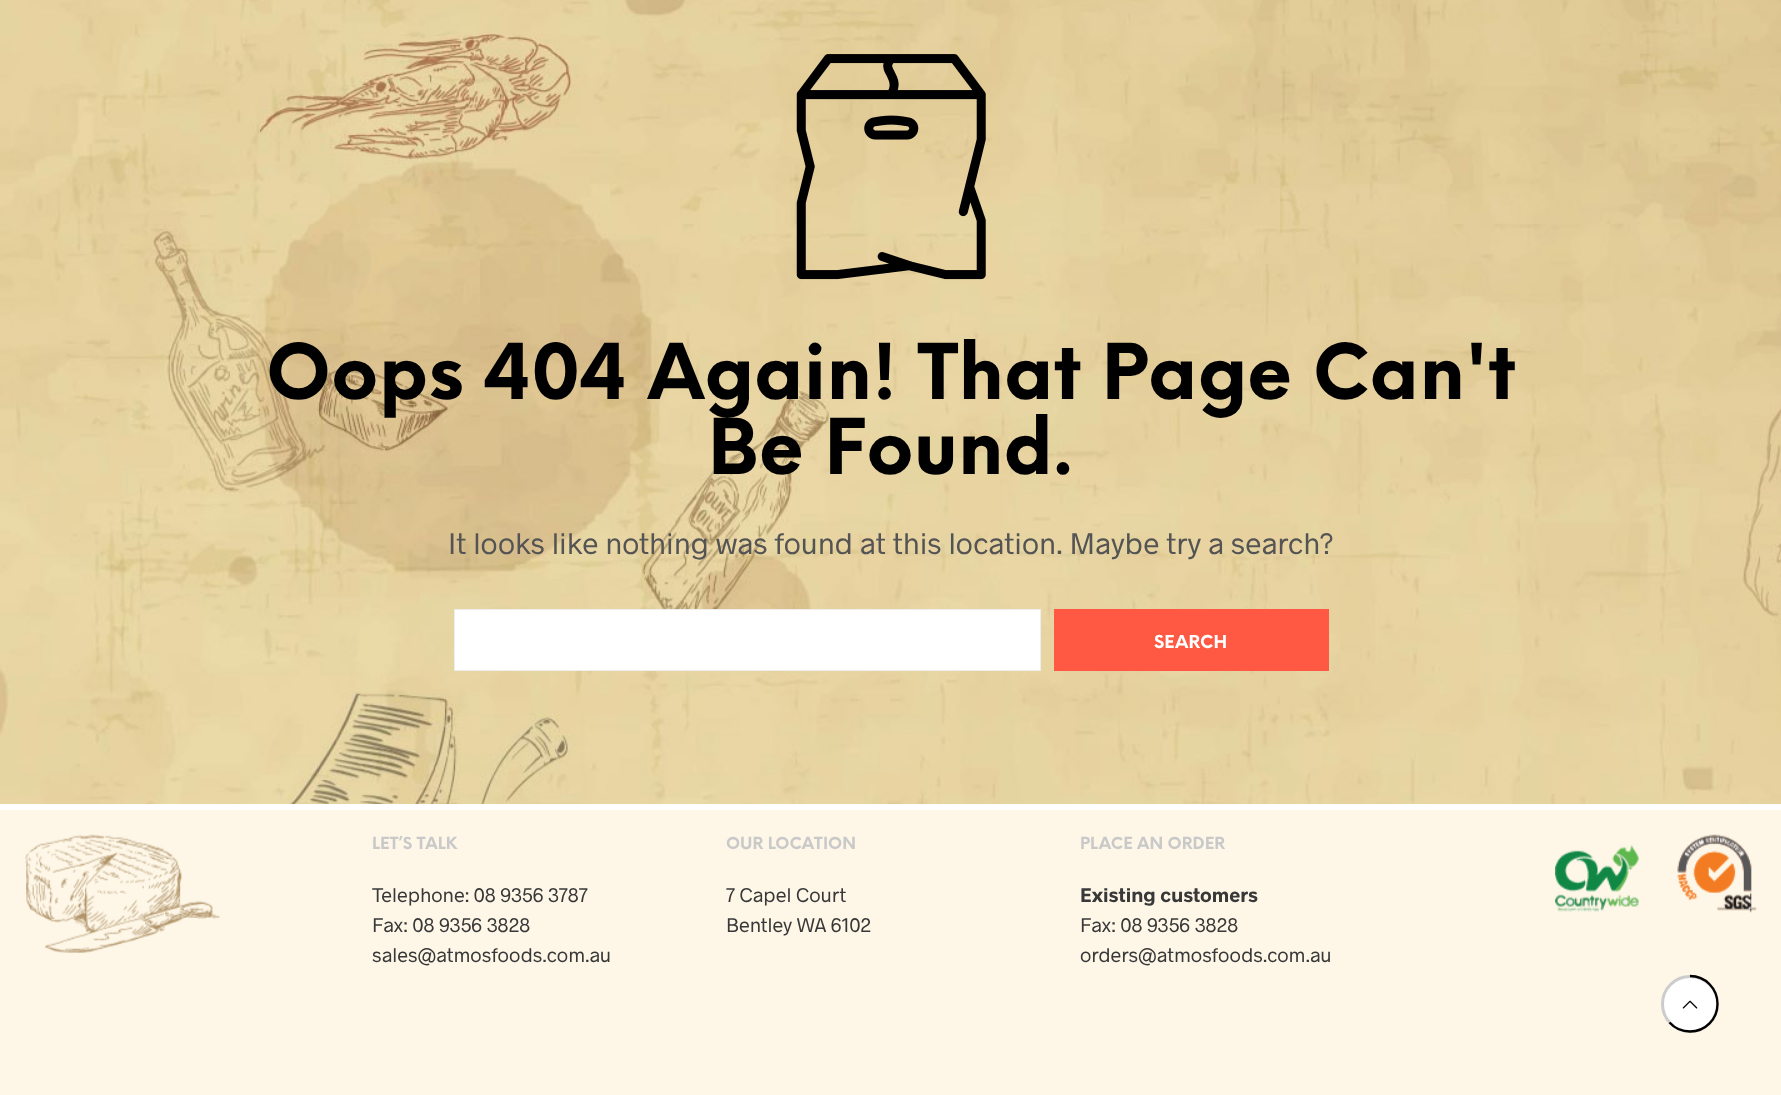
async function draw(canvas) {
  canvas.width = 1781;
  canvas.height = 1095;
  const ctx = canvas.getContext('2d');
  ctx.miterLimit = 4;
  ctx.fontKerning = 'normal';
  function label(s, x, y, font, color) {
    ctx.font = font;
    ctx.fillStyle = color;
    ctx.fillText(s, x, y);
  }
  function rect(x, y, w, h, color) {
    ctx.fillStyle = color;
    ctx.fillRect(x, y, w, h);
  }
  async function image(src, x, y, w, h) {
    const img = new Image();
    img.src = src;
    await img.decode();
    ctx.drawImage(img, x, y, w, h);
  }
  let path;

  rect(0, 0, 1781, 1095, '#fff');
  await image('assets/img1.png', 0, 0, 1781, 804);
  await image('assets/img2.png', 796, 54, 190, 226);
  label('Oops 404 Again! That Page Can\'t', 266, 399, 'bold 75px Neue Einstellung', '#000');
  label('Be Found.', 708, 474, 'bold 75px Neue Einstellung', '#000');
  label('It looks like nothing was found at this location. Maybe try a search?', 448, 554, '30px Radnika', '#545454');
  ctx.fillStyle = '#fff';
  ctx.beginPath();
  ctx.rect(454.5, 609.5, 586, 61);
  ctx.fill();
  ctx.strokeStyle = '#eee';
  ctx.stroke();
  rect(1054, 609, 275, 62, '#ff5943');
  label('SEARCH', 1154, 648, 'bold 17.5px Neue Einstellung', '#fff');
  rect(0, 810, 1781, 285, '#fef7e8');
  await image('assets/img3.png', 25, 834, 1732, 119);
  label('LET’S TALK', 372, 849, 'bold 16.25px Neue Einstellung', '#c9c9c9');
  label('Telephone: 08 9356 3787', 372, 902, '20px Radnika', '#383838');
  label('Fax: 08 9356 3828', 372, 932, '20px Radnika', '#383838');
  label('sales@atmosfoods.com.au', 372, 962, '20px Radnika', '#383838');
  label('OUR LOCATION', 726, 849, 'bold 16.25px Neue Einstellung', '#c9c9c9');
  label('7 Capel Court', 726, 902, '20px Radnika', '#383838');
  label('Bentley WA 6102', 726, 932, '20px Radnika', '#383838');
  label('PLACE AN ORDER', 1080, 849, 'bold 16.25px Neue Einstellung', '#c9c9c9');
  label('Existing customers', 1080, 902, 'bold 20px Radnika', '#383838');
  label('Fax: 08 9356 3828', 1080, 932, '20px Radnika', '#383838');
  label('orders@atmosfoods.com.au', 1080, 962, '20px Radnika', '#383838');
  ctx.fillStyle = '#fff';
  ctx.beginPath();
  ctx.arc(1690, 1004, 29, 0, 2 * Math.PI);
  ctx.fill();
  ctx.beginPath();
  ctx.arc(1690, 1004, 27.5, 0, 2 * Math.PI);
  ctx.strokeStyle = '#00000033';
  ctx.lineWidth = 3;
  ctx.stroke();
  path = new Path2D('M1690 976C1705.5 976 1717.5 988.5 1717.5 1004C1717.5 1019 1705.5 1031.5 1690 1031.5C1682 1031.5 1674.5 1028 1669.5 1022.5');
  ctx.strokeStyle = '#000';
  ctx.lineWidth = 2.3;
  ctx.stroke(path);
  await image('assets/img4.png', 1682, 1000, 16, 9);
}

draw(document.querySelector('canvas'));
